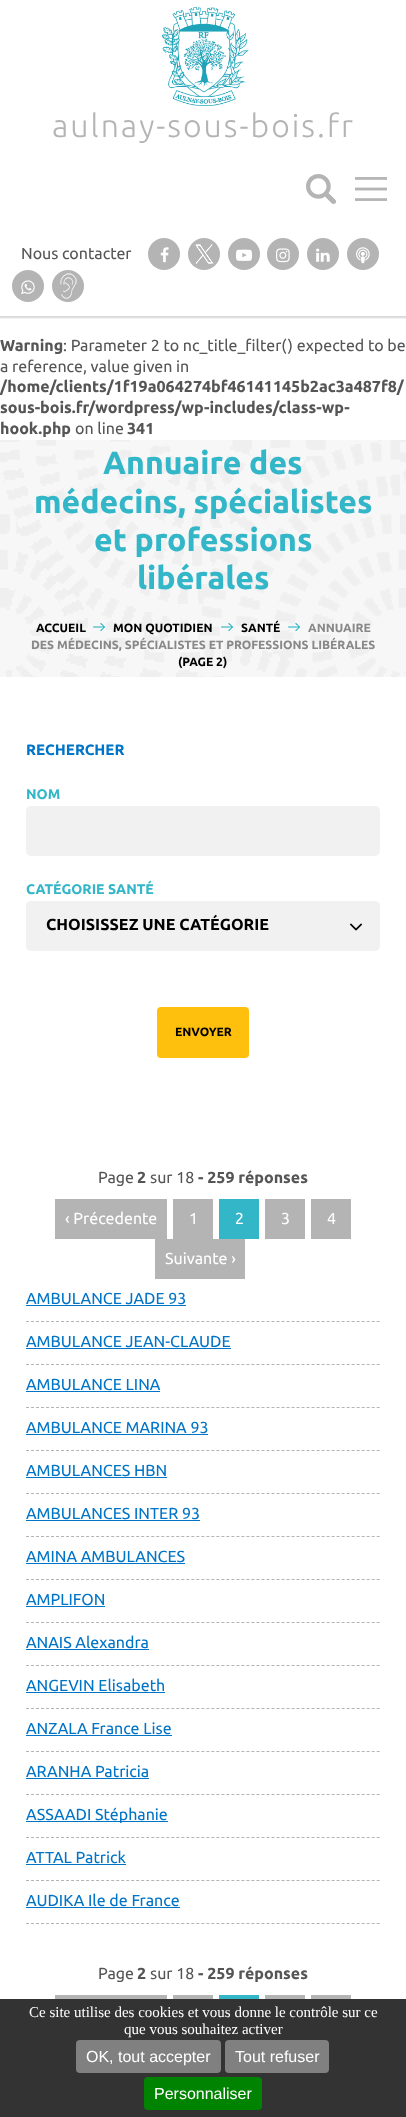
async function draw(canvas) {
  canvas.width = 406;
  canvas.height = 2117;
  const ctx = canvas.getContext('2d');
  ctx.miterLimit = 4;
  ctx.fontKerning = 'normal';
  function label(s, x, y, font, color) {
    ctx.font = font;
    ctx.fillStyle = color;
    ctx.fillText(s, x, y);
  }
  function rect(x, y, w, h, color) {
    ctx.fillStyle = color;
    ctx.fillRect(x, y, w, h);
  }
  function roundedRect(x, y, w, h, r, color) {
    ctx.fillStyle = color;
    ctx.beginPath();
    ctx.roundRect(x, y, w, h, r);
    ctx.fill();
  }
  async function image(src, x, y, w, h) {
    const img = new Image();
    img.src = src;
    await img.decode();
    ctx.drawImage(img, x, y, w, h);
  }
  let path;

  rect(0, 0, 406, 2117, '#fff');
  await image('assets/img1.png', 162, 7, 87, 99);
  ctx.letterSpacing = '2px';
  label('aulnay-sous-bois.fr', 52, 137, '300 32px Ubuntu', '#b4b4b4');
  await image('assets/img2.png', 306, 174, 30, 30);
  await image('assets/img3.png', 355, 177, 32, 24);
  ctx.letterSpacing = '0px';
  label('Nous contacter', 21, 259, '16px Ubuntu', '#555');
  ctx.fillStyle = '#b4b4b4';
  ctx.beginPath();
  ctx.arc(164, 254, 16, 0, 2 * Math.PI);
  ctx.fill();
  await image('assets/img4.png', 160, 247, 9, 16);
  ctx.beginPath();
  ctx.arc(204, 254, 16, 0, 2 * Math.PI);
  ctx.fill();
  await image('assets/img5.png', 195, 244, 19, 20);
  ctx.beginPath();
  ctx.arc(244, 254, 16, 0, 2 * Math.PI);
  ctx.fill();
  await image('assets/img6.png', 236, 249, 16, 12);
  ctx.beginPath();
  ctx.arc(283, 254, 16, 0, 2 * Math.PI);
  ctx.fill();
  await image('assets/img7.png', 276, 248, 14, 15);
  ctx.beginPath();
  ctx.arc(323, 254, 16, 0, 2 * Math.PI);
  ctx.fill();
  await image('assets/img8.png', 316, 248, 14, 14);
  ctx.beginPath();
  ctx.arc(363, 254, 16, 0, 2 * Math.PI);
  ctx.fill();
  await image('assets/img9.png', 356, 247, 14, 17);
  ctx.beginPath();
  ctx.arc(28, 286, 16, 0, 2 * Math.PI);
  ctx.fill();
  await image('assets/img10.png', 21, 280, 14, 15);
  ctx.beginPath();
  ctx.arc(68, 286, 16, 0, 2 * Math.PI);
  ctx.fill();
  await image('assets/img11.png', 60, 273, 17, 26);
  await image('assets/img12.png', 0, 316, 406, 3);
  label('Warning', 0, 351, 'bold 16px Ubuntu', '#555');
  label(': Parameter 2 to nc_title_filter() expected to be', 63, 351, '16px Ubuntu', '#555');
  label('a reference, value given in', 0, 372, '16px Ubuntu', '#555');
  label('/home/clients/1f19a064274bf46141145b2ac3a487f8/', 0, 392, 'bold 16px Ubuntu', '#555');
  label('sous-bois.fr/wordpress/wp-includes/class-wp-', 0, 413, 'bold 16px Ubuntu', '#555');
  label('hook.php', 0, 434, 'bold 16px Ubuntu', '#555');
  label('on line', 75, 434, '16px Ubuntu', '#555');
  label('341', 127, 434, 'bold 16px Ubuntu', '#555');
  rect(0, 440, 406, 237, '#f7f7f7');
  await image('assets/img13.png', 0, 440, 406, 237);
  label('Annuaire des', 103, 474, 'bold 32px Ubuntu', '#32b6c8');
  label('médecins, spécialistes', 34, 513, 'bold 32px Ubuntu', '#32b6c8');
  label('et professions', 94, 551, 'bold 32px Ubuntu', '#32b6c8');
  label('libérales', 137, 589, 'bold 32px Ubuntu', '#32b6c8');
  label('ACCUEIL', 36, 632, 'bold 12px Ubuntu', '#000');
  await image('assets/img14.png', 93, 623, 12, 8);
  label('MON QUOTIDIEN', 113, 632, 'bold 12px Ubuntu', '#000');
  await image('assets/img14.png', 221, 623, 12, 8);
  label('SANTÉ', 241, 632, 'bold 12px Ubuntu', '#000');
  await image('assets/img15.png', 288, 623, 12, 8);
  label('ANNUAIRE', 308, 632, 'bold 12px Ubuntu', '#888');
  label('DES MÉDECINS, SPÉCIALISTES ET PROFESSIONS LIBÉRALES', 31, 649, 'bold 12px Ubuntu', '#888');
  label('(PAGE 2)', 178, 666, 'bold 12px Ubuntu', '#000');
  label('RECHERCHER', 26, 755, 'bold 15px Ubuntu', '#0074c7');
  label('NOM', 26, 799, 'bold 14px Ubuntu', '#32b6c8');
  roundedRect(26, 806, 354, 50, 5, '#f1f1f1');
  label('CATÉGORIE SANTÉ', 26, 894, 'bold 14px Ubuntu', '#32b6c8');
  roundedRect(26, 901, 354, 50, 5, '#f1f1f1');
  label('CHOISISSEZ UNE CATÉGORIE', 46, 930, 'bold 16px Ubuntu', '#000');
  await image('assets/img16.png', 350, 923, 12, 8);
  roundedRect(157, 1007, 92, 51, 4, '#ffbf0d');
  label('ENVOYER', 175, 1036, 'bold 12px Ubuntu', '#000');
  label('Page', 98, 1183, '16px Ubuntu', '#555');
  label('2', 137, 1183, 'bold 16px Ubuntu', '#555');
  label('sur 18', 150, 1183, '16px Ubuntu', '#555');
  label('- 259 réponses', 198, 1183, 'bold 16px Ubuntu', '#555');
  rect(55, 1199, 112, 40, '#b4b4b4');
  label('‹ Précedente', 65, 1224, '16px Ubuntu', '#fff');
  rect(173, 1199, 40, 40, '#b4b4b4');
  label('1', 189, 1224, '16px Ubuntu', '#fff');
  rect(219, 1199, 40, 40, '#32b6c8');
  label('2', 235, 1224, '16px Ubuntu', '#fff');
  rect(265, 1199, 40, 40, '#b4b4b4');
  label('3', 281, 1224, '16px Ubuntu', '#fff');
  rect(311, 1199, 40, 40, '#b4b4b4');
  label('4', 327, 1224, '16px Ubuntu', '#fff');
  rect(155, 1239, 90, 40, '#b4b4b4');
  label('Suivante ›', 165, 1264, '16px Ubuntu', '#fff');
  path = new Path2D('M26 1321.5H380');
  ctx.strokeStyle = '#b4b4b4';
  ctx.setLineDash([3, 2.01]);
  ctx.stroke(path);
  label('AMBULANCE JADE 93', 26, 1304, '16px Ubuntu', '#0074c7');
  rect(26, 1305, 160, 1, '#0074c7');
  path = new Path2D('M26 1364.5H380');
  ctx.stroke(path);
  label('AMBULANCE JEAN-CLAUDE', 26, 1347, '16px Ubuntu', '#0074c7');
  rect(26, 1348, 205, 1, '#0074c7');
  path = new Path2D('M26 1407.5H380');
  ctx.stroke(path);
  label('AMBULANCE LINA', 26, 1390, '16px Ubuntu', '#0074c7');
  rect(26, 1391, 134, 1, '#0074c7');
  path = new Path2D('M26 1450.5H380');
  ctx.stroke(path);
  label('AMBULANCE MARINA 93', 26, 1433, '16px Ubuntu', '#0074c7');
  rect(26, 1434, 182, 1, '#0074c7');
  path = new Path2D('M26 1493.5H380');
  ctx.stroke(path);
  label('AMBULANCES HBN', 26, 1476, '16px Ubuntu', '#0074c7');
  rect(26, 1477, 141, 1, '#0074c7');
  path = new Path2D('M26 1536.5H380');
  ctx.stroke(path);
  label('AMBULANCES INTER 93', 26, 1519, '16px Ubuntu', '#0074c7');
  rect(26, 1520, 174, 1, '#0074c7');
  path = new Path2D('M26 1579.5H380');
  ctx.stroke(path);
  label('AMINA AMBULANCES', 26, 1562, '16px Ubuntu', '#0074c7');
  rect(26, 1563, 159, 1, '#0074c7');
  path = new Path2D('M26 1622.5H380');
  ctx.stroke(path);
  label('AMPLIFON', 26, 1605, '16px Ubuntu', '#0074c7');
  rect(26, 1606, 79, 1, '#0074c7');
  path = new Path2D('M26 1665.5H380');
  ctx.stroke(path);
  label('ANAIS Alexandra', 26, 1648, '16px Ubuntu', '#0074c7');
  rect(26, 1649, 123, 1, '#0074c7');
  path = new Path2D('M26 1708.5H380');
  ctx.stroke(path);
  label('ANGEVIN Elisabeth', 26, 1691, '16px Ubuntu', '#0074c7');
  rect(26, 1692, 139, 1, '#0074c7');
  path = new Path2D('M26 1751.5H380');
  ctx.stroke(path);
  label('ANZALA France Lise', 26, 1734, '16px Ubuntu', '#0074c7');
  rect(26, 1735, 146, 1, '#0074c7');
  path = new Path2D('M26 1794.5H380');
  ctx.stroke(path);
  label('ARANHA Patricia', 26, 1777, '16px Ubuntu', '#0074c7');
  rect(26, 1778, 123, 1, '#0074c7');
  path = new Path2D('M26 1837.5H380');
  ctx.stroke(path);
  rect(26, 1821, 142, 1, '#0074c7');
  label('ASSAADI Stéphanie', 26, 1820, '16px Ubuntu', '#0074c7');
  path = new Path2D('M26 1880.5H380');
  ctx.stroke(path);
  label('ATTAL Patrick', 26, 1863, '16px Ubuntu', '#0074c7');
  rect(26, 1864, 100, 1, '#0074c7');
  path = new Path2D('M26 1923.5H380');
  ctx.stroke(path);
  label('AUDIKA Ile de France', 26, 1906, '16px Ubuntu', '#0074c7');
  rect(26, 1907, 154, 1, '#0074c7');
  label('Page', 98, 1979, '16px Ubuntu', '#555');
  label('2', 137, 1979, 'bold 16px Ubuntu', '#555');
  label('sur 18', 150, 1979, '16px Ubuntu', '#555');
  label('- 259 réponses', 198, 1979, 'bold 16px Ubuntu', '#555');
  rect(55, 1995, 112, 4, '#b4b4b4');
  rect(173, 1995, 40, 4, '#b4b4b4');
  rect(219, 1995, 40, 4, '#32b6c8');
  rect(265, 1995, 40, 4, '#b4b4b4');
  rect(311, 1995, 40, 4, '#b4b4b4');
  rect(0, 1999, 406, 118, '#333');
  label('Ce site utilise des cookies et vous donne le contrôle sur ce', 29, 2017, '15px Liberation Serif', '#fff');
  label('que vous souhaitez activer', 124, 2034, '15px Liberation Serif', '#fff');
  roundedRect(76, 2040, 145, 33, 4, '#808080');
  label('OK, tout accepter', 86, 2062, '16px Liberation Sans', '#fff');
  roundedRect(225, 2040, 104, 33, 4, '#808080');
  label('Tout refuser', 235, 2062, '16px Liberation Sans', '#fff');
  roundedRect(144, 2077, 118, 33, 4, '#008300');
  label('Personnaliser', 154, 2099, '16px Liberation Sans', '#fff');
}

draw(document.querySelector('canvas'));
